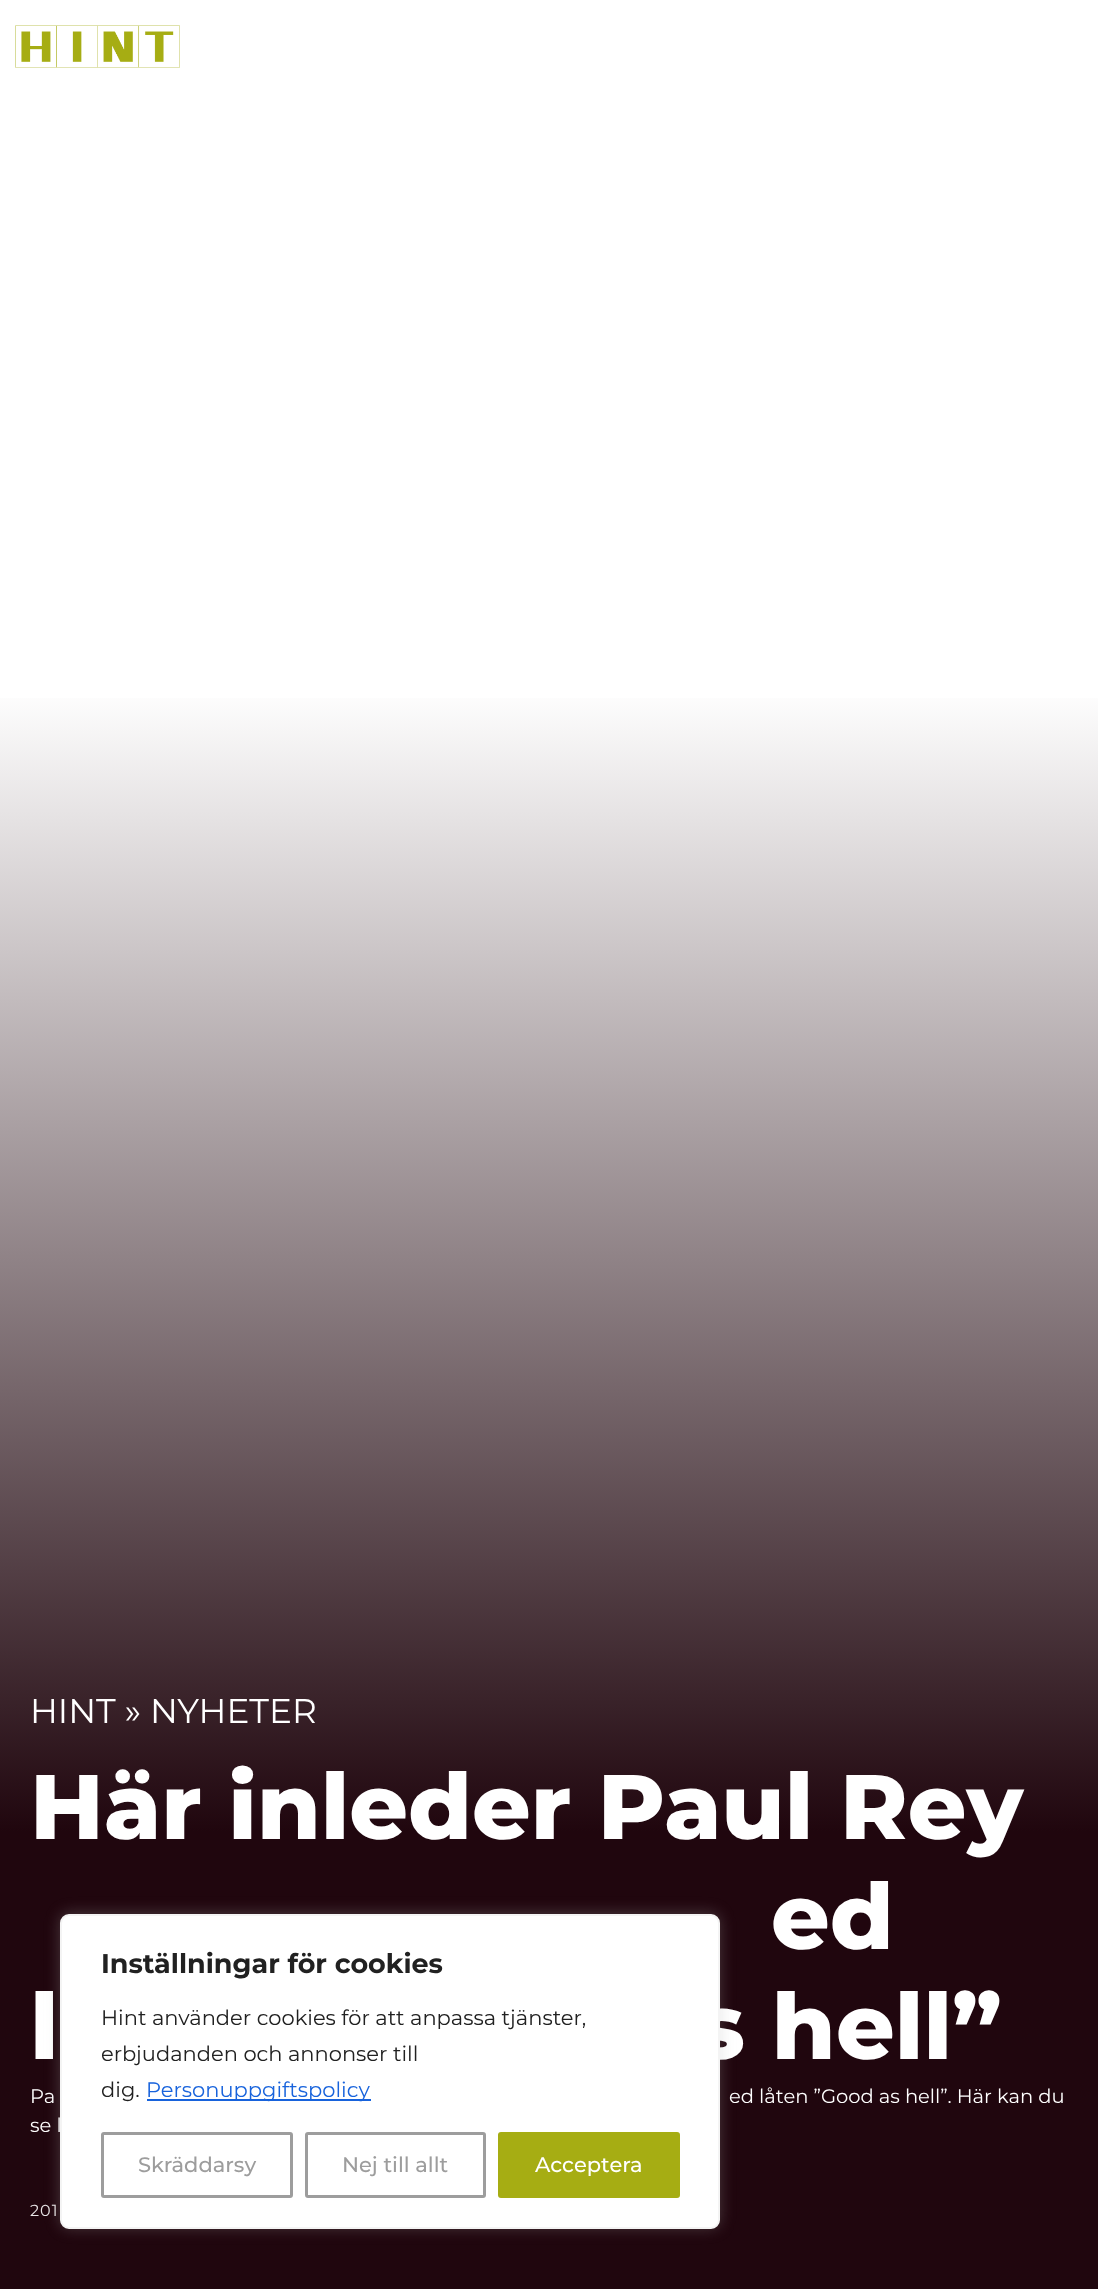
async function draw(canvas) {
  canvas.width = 1098;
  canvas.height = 2289;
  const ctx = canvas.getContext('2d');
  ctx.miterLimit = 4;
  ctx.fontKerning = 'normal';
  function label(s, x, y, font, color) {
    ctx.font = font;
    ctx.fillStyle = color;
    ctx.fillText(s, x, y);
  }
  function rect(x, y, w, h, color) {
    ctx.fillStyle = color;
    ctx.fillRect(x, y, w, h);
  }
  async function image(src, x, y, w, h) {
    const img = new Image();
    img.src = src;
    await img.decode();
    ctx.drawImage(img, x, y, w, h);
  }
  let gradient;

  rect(0, 0, 1098, 2289, '#fff');
  await image('assets/img1.png', 15, 25, 165, 43);
  gradient = ctx.createLinearGradient(549, 2289, 549, 0);
  gradient.addColorStop(0.2, '#20060e');
  gradient.addColorStop(0.7, '#fff');
  ctx.fillStyle = gradient;
  ctx.fillRect(0, 698, 1098, 1591);
  label('HINT » NYHETER', 30, 1723, '34.25px Montserrat', '#fff');
  label('Här inleder Paul Rey', 30, 1839, '800 91.5px Montserrat', '#fff');
  label('ed', 771, 1949, '800 91.5px Montserrat', '#fff');
  label('l', 30, 2059, '800 91.5px Montserrat', '#fff');
  label('s hell”', 695, 2059, '800 91.5px Montserrat', '#fff');
  label('Pa', 30, 2103, '19.5px Montserrat', '#fff');
  label('ed låten ”Good as hell”. Här kan du', 729, 2103, '19.5px Montserrat', '#fff');
  label('se l', 30, 2132, '19.5px Montserrat', '#fff');
  ctx.letterSpacing = '1px';
  label('201', 30, 2216, '16px Montserrat', '#e9e6e7');
  ctx.fillStyle = '#acabab4d';
  ctx.filter = 'blur(7.5px)';
  ctx.beginPath();
  ctx.roundRect(60, 1913, 660, 315, 9);
  ctx.fill();
  ctx.filter = 'none';
  ctx.fillStyle = '#fff';
  ctx.beginPath();
  ctx.roundRect(61, 1915, 658, 313, 8);
  ctx.fill();
  ctx.strokeStyle = '#f4f4f4';
  ctx.lineWidth = 2;
  ctx.stroke();
  ctx.letterSpacing = '0px';
  label('Inställningar för cookies', 101, 1973, 'bold 27px Montserrat', '#212121');
  label('Hint använder cookies för att anpassa tjänster,', 101, 2025, '21px Montserrat', '#212121');
  label('erbjudanden och annonser till', 101, 2061, '21px Montserrat', '#212121');
  label('dig.', 101, 2097, '21px Montserrat', '#212121');
  rect(147, 2099, 224, 2, '#1863dc');
  label('Personuppgiftspolicy', 146, 2097, '21px Montserrat', '#1863dc');
  ctx.beginPath();
  ctx.roundRect(102.5, 2133.5, 189, 63, 1.5);
  ctx.strokeStyle = '#9d9d9d';
  ctx.lineWidth = 3;
  ctx.stroke();
  label('Skräddarsy', 138, 2172, '500 21px Montserrat', '#9d9d9d');
  ctx.beginPath();
  ctx.roundRect(306.5, 2133.5, 178, 63, 1.5);
  ctx.stroke();
  label('Nej till allt', 342, 2172, '500 21px Montserrat', '#9d9d9d');
  ctx.fillStyle = '#a6ad13';
  ctx.beginPath();
  ctx.roundRect(499.5, 2133.5, 179, 63, 1.5);
  ctx.fill();
  ctx.strokeStyle = '#a6ad13';
  ctx.stroke();
  label('Acceptera', 535, 2172, '500 21px Montserrat', '#fff');
}

draw(document.querySelector('canvas'));
